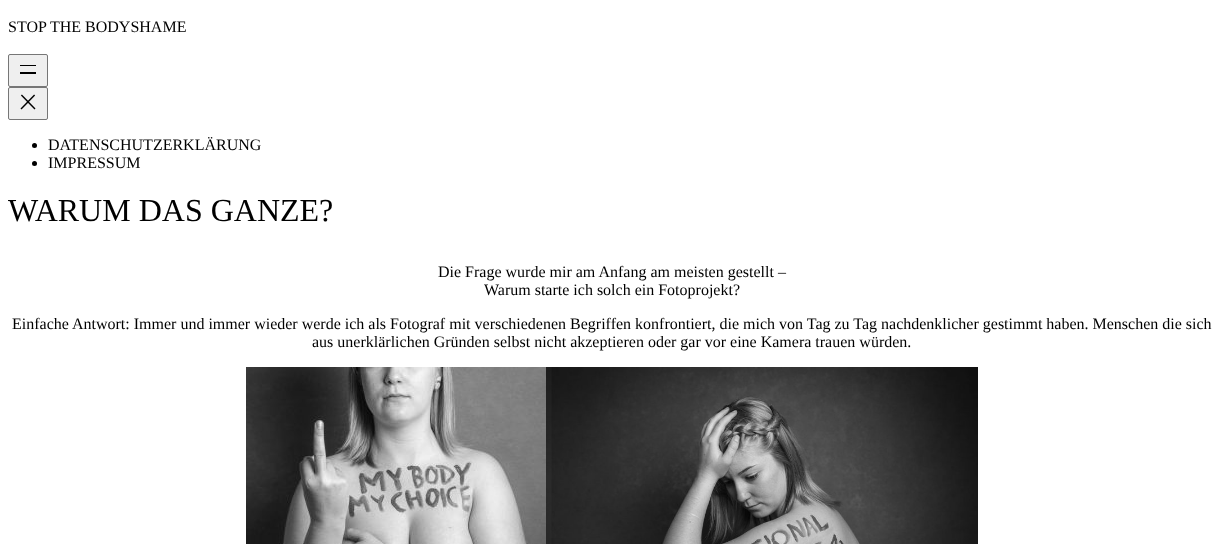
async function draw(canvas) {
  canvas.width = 1224;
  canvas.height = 544;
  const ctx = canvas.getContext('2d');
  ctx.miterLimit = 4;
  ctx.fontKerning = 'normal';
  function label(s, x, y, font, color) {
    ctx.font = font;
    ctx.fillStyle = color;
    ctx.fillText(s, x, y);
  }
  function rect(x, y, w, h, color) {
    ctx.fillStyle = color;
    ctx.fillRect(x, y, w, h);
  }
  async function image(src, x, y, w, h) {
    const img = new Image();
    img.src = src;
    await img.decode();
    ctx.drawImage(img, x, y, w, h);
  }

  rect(0, 0, 1224, 544, '#fff');
  label('STOP THE BODYSHAME', 8, 32, '16px Liberation Serif', '#000');
  ctx.fillStyle = '#efefef';
  ctx.beginPath();
  ctx.roundRect(8.5, 54.5, 39, 32, 1.5);
  ctx.fill();
  ctx.strokeStyle = '#767676';
  ctx.stroke();
  rect(20, 65, 16, 1, '#000');
  rect(20, 72, 16, 2, '#000');
  ctx.fillStyle = '#efefef';
  ctx.beginPath();
  ctx.roundRect(8.5, 87.5, 39, 32, 1.5);
  ctx.fill();
  ctx.stroke();
  await image('assets/img1.png', 20, 94, 16, 16);
  ctx.fillStyle = '#000';
  ctx.beginPath();
  ctx.arc(34.5, 145.5, 2.5, 0, 2 * Math.PI);
  ctx.fill();
  label('DATENSCHUTZERKLÄRUNG', 48, 150, '16px Liberation Serif', '#000');
  ctx.beginPath();
  ctx.arc(34.5, 163.5, 2.5, 0, 2 * Math.PI);
  ctx.fill();
  label('IMPRESSUM', 48, 168, '16px Liberation Serif', '#000');
  label('WARUM DAS GANZE?', 8, 221, '32px Liberation Serif', '#000');
  label('Die Frage wurde mir am Anfang am meisten gestellt –', 438, 277, '16px Liberation Serif', '#000');
  label('Warum starte ich solch ein Fotoprojekt?', 484, 295, '16px Liberation Serif', '#000');
  label('Einfache Antwort: Immer und immer wieder werde ich als Fotograf mit verschiedenen Begriffen konfrontiert, die mich von Tag zu Tag nachdenklicher gestimmt haben. Menschen die sich', 12, 329, '16px Liberation Serif', '#000');
  label('aus unerklärlichen Gründen selbst nicht akzeptieren oder gar vor eine Kamera trauen würden.', 312, 347, '16px Liberation Serif', '#000');
  await image('assets/img2.png', 246, 367, 300, 177);
  await image('assets/img3.png', 546, 367, 432, 177);
}

draw(document.querySelector('canvas'));
